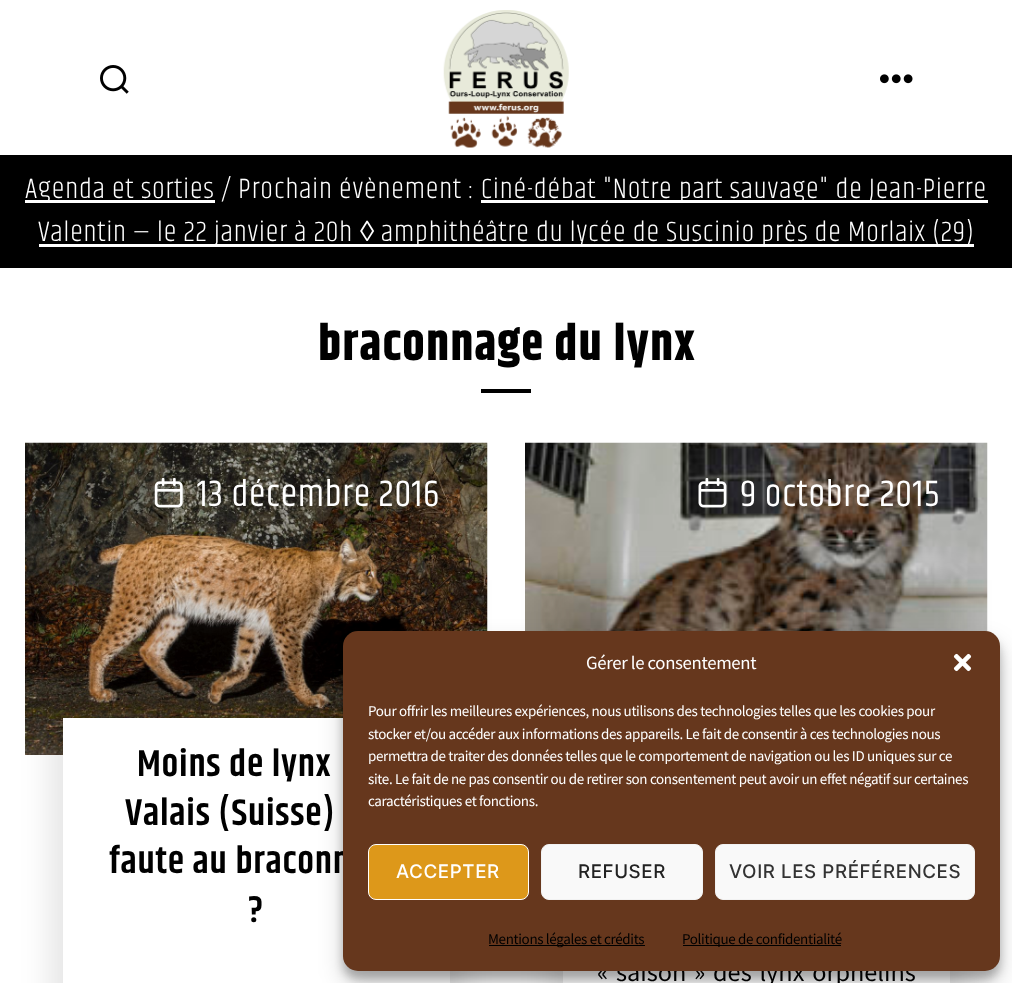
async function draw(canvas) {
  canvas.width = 1012;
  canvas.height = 983;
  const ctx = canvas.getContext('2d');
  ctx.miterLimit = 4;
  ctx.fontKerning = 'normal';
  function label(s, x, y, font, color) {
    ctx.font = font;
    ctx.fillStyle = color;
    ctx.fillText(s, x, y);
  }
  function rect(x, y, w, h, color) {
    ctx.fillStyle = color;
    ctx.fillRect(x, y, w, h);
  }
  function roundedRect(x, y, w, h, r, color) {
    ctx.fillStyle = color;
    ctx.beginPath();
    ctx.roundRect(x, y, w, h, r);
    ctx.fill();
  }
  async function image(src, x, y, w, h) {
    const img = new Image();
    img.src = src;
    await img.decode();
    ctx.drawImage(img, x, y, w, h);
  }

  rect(0, 0, 1012, 983, '#fff');
  rect(0, 155, 1012, 113, '#000');
  rect(25, 200, 190, 3, '#fff');
  rect(481, 200, 507, 3, '#fff');
  ctx.fillStyle = '#00000026';
  ctx.filter = 'blur(15.5px)';
  ctx.beginPath();
  ctx.rect(-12, -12, 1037, 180);
  ctx.fill();
  ctx.filter = 'none';
  rect(0, 0, 1012, 155, '#fff');
  await image('assets/img1.png', 100, 65, 29, 29);
  await image('assets/img2.png', 443, 10, 126, 138);
  await image('assets/img3.png', 880, 74, 33, 10);
  ctx.letterSpacing = '0.9px';
  label('Agenda et sorties / Prochain évènement :', 25, 198, '300 28.75px Khand', '#fff');
  label('Ciné-débat "Notre part sauvage" de Jean-Pierre', 481, 198, '300 28.75px Khand', '#fff');
  rect(39, 244, 935, 3, '#fff');
  label('Valentin — le 22 janvier à 20h', 38, 241, '300 28.75px Khand', '#fff');
  label('◊', 360, 241, '28.75px Liberation Sans', '#fff');
  label('amphithéâtre du lycée de Suscinio près de Morlaix (29)', 381, 241, '300 28.75px Khand', '#fff');
  ctx.letterSpacing = '1.1px';
  label('braconnage du lynx', 318, 360, 'bold 50px Khand', '#000');
  rect(481, 389, 50, 4, '#000');
  await image('assets/img4.png', 25, 442, 463, 313);
  await image('assets/img5.png', 154, 478, 29, 30);
  ctx.letterSpacing = '0.75px';
  label('13 décembre 2016', 197, 506, '37.5px Khand', '#fff');
  ctx.fillStyle = '#0000001a';
  ctx.filter = 'blur(15.5px)';
  ctx.beginPath();
  ctx.rect(50, 580, 413, 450);
  ctx.fill();
  ctx.filter = 'none';
  rect(63, 718, 387, 265, '#fff');
  label('Moins de lynx', 137, 776, '600 37.5px Khand', '#000');
  label('Valais (Suisse)', 125, 825, '600 37.5px Khand', '#000');
  label('faute au braconn', 109, 873, '600 37.5px Khand', '#000');
  label('?', 248, 922, '600 37.5px Khand', '#000');
  await image('assets/img6.png', 525, 442, 463, 190);
  await image('assets/img7.png', 698, 478, 29, 30);
  label('9 octobre 2015', 740, 506, '37.5px Khand', '#fff');
  ctx.fillStyle = '#0000001a';
  ctx.filter = 'blur(15.5px)';
  ctx.beginPath();
  ctx.rect(550, 580, 413, 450);
  ctx.fill();
  ctx.filter = 'none';
  rect(563, 971, 387, 12, '#fff');
  ctx.letterSpacing = '0px';
  ctx.wordSpacing = '2.5px';
  label('« saison » des lynx orphelins', 597, 981, '26.25px Source Sans Pro', '#000');
  ctx.fillStyle = '#0000003b';
  ctx.filter = 'blur(4px)';
  ctx.beginPath();
  ctx.roundRect(343, 639, 657, 340, 15);
  ctx.fill();
  ctx.filter = 'none';
  ctx.fillStyle = '#00000030';
  ctx.filter = 'blur(12.5px)';
  ctx.beginPath();
  ctx.roundRect(343, 644, 657, 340, 15);
  ctx.fill();
  ctx.filter = 'none';
  roundedRect(343, 631, 657, 340, 15, '#66371d');
  ctx.letterSpacing = '-0.34px';
  ctx.wordSpacing = '0px';
  label('Gérer le consentement', 586, 669, '18.75px Source Sans Pro', '#fff');
  await image('assets/img8.png', 953, 653, 19, 19);
  label('Pour offrir les meilleures expériences, nous utilisons des technologies telles que les cookies pour', 368, 716, '15px Source Sans Pro', '#fff');
  label('stocker et/ou accéder aux informations des appareils. Le fait de consentir à ces technologies nous', 368, 739, '15px Source Sans Pro', '#fff');
  label('permettra de traiter des données telles que le comportement de navigation ou les ID uniques sur ce', 368, 761, '15px Source Sans Pro', '#fff');
  label('site. Le fait de ne pas consentir ou de retirer son consentement peut avoir un effet négatif sur certaines', 368, 784, '15px Source Sans Pro', '#fff');
  label('caractéristiques et fonctions.', 368, 806, '15px Source Sans Pro', '#fff');
  ctx.fillStyle = '#dd981a';
  ctx.beginPath();
  ctx.roundRect(368.5, 844.5, 160, 55, 7.5);
  ctx.fill();
  ctx.strokeStyle = '#fff';
  ctx.stroke();
  ctx.letterSpacing = '0.6px';
  label('ACCEPTER', 396, 878, '500 18.75px Inter', '#fff');
  ctx.fillStyle = '#f9f9f9';
  ctx.beginPath();
  ctx.roundRect(541.5, 844.5, 161, 55, 7.5);
  ctx.fill();
  ctx.strokeStyle = '#f2f2f2';
  ctx.stroke();
  label('REFUSER', 578, 878, '500 18.75px Inter', '#222');
  ctx.fillStyle = '#f9f9f9';
  ctx.beginPath();
  ctx.roundRect(715.5, 844.5, 259, 55, 7.5);
  ctx.fill();
  ctx.stroke();
  label('VOIR LES PRÉFÉRENCES', 729, 878, '500 18.75px Inter', '#333');
  rect(489, 945, 156, 1, '#000');
  ctx.letterSpacing = '-0.34px';
  label('Mentions légales et crédits', 488, 944, '15px Source Sans Pro', '#000');
  rect(683, 945, 158, 1, '#000');
  label('Politique de confidentialité', 682, 944, '15px Source Sans Pro', '#000');
}

draw(document.querySelector('canvas'));
